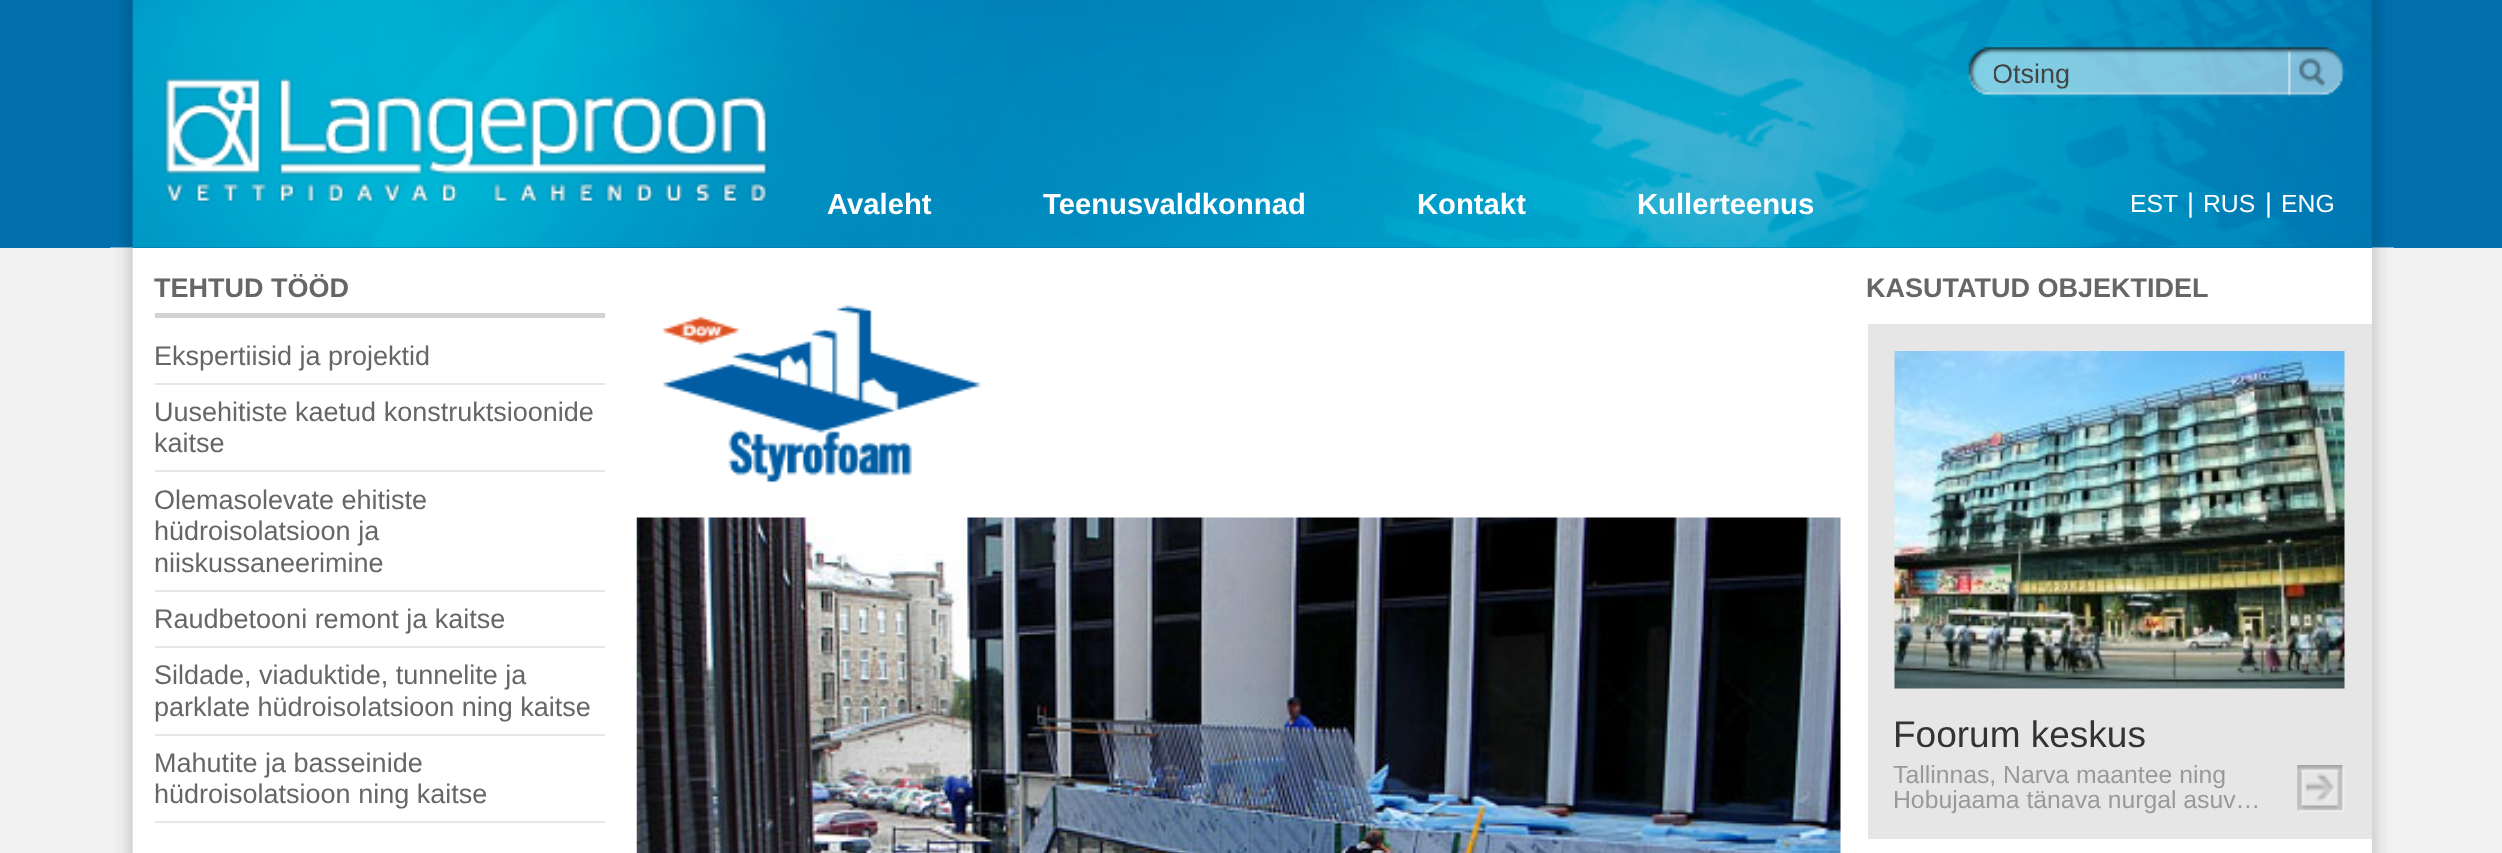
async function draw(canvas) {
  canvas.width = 2502;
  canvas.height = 853;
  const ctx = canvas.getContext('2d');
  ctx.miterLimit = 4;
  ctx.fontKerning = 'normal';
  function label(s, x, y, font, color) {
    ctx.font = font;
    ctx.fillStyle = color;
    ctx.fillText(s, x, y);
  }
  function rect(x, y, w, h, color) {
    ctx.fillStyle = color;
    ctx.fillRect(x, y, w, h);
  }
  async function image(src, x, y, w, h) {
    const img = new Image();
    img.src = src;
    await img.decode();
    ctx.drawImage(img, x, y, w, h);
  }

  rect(0, 0, 2502, 853, '#f2f2f3');
  rect(0, 0, 2502, 248, '#006fab');
  await image('assets/img1.png', 119, 0, 2266, 248);
  await image('assets/img6.png', 110, 247, 2284, 606);
  await image('assets/img2.png', 132, 0, 2240, 248);
  await image('assets/img3.png', 164, 77, 604, 126);
  label('Avaleht', 827, 214, 'bold 29.25px Liberation Sans', '#fff');
  label('Teenusvaldkonnad', 1043, 214, 'bold 29.25px Liberation Sans', '#fff');
  label('Kontakt', 1417, 214, 'bold 29.25px Liberation Sans', '#fff');
  label('Kullerteenus', 1637, 214, 'bold 29.25px Liberation Sans', '#fff');
  await image('assets/img4.png', 1968, 47, 323, 50);
  ctx.save();
  ctx.beginPath();
  ctx.rect(1994, 59, 294, 31);
  ctx.clip();
  label('Otsing', 1992, 83, '27px Liberation Sans', '#444');
  ctx.restore();
  await image('assets/img5.png', 2288, 47, 57, 50);
  label('EST', 2130, 212, '24.75px Liberation Sans', '#fff');
  label('|', 2187, 212, '27px Liberation Sans', '#fff');
  label('RUS', 2203, 212, '24.75px Liberation Sans', '#fff');
  label('|', 2265, 212, '27px Liberation Sans', '#fff');
  label('ENG', 2281, 212, '24.75px Liberation Sans', '#fff');
  rect(133, 248, 2239, 605, '#fff');
  rect(155, 313, 450, 5, '#d2d2d2');
  label('TEHTUD TÖÖD', 154, 297, 'bold 27px Liberation Sans', '#666');
  rect(155, 383, 450, 2, '#e6e6e6');
  label('Ekspertiisid ja projektid', 154, 365, '27px Liberation Sans', '#666');
  rect(155, 470, 450, 2, '#e6e6e6');
  label('Uusehitiste kaetud konstruktsioonide', 154, 421, '27px Liberation Sans', '#666');
  label('kaitse', 154, 452, '27px Liberation Sans', '#666');
  rect(155, 590, 450, 2, '#e6e6e6');
  label('Olemasolevate ehitiste', 154, 509, '27px Liberation Sans', '#666');
  label('hüdroisolatsioon ja', 154, 540, '27px Liberation Sans', '#666');
  label('niiskussaneerimine', 154, 572, '27px Liberation Sans', '#666');
  rect(155, 646, 450, 2, '#e6e6e6');
  label('Raudbetooni remont ja kaitse', 154, 628, '27px Liberation Sans', '#666');
  rect(155, 734, 450, 2, '#e6e6e6');
  label('Sildade, viaduktide, tunnelite ja', 154, 684, '27px Liberation Sans', '#666');
  label('parklate hüdroisolatsioon ning kaitse', 154, 716, '27px Liberation Sans', '#666');
  rect(155, 821, 450, 2, '#e6e6e6');
  label('Mahutite ja basseinide', 154, 772, '27px Liberation Sans', '#666');
  label('hüdroisolatsioon ning kaitse', 154, 803, '27px Liberation Sans', '#666');
  await image('assets/img7.png', 661, 305, 320, 178);
  await image('assets/img8.png', 636, 517, 1205, 336);
  label('KASUTATUD OBJEKTIDEL', 1866, 297, 'bold 27px Liberation Sans', '#666');
  rect(1868, 324, 504, 515, '#e6e6e6');
  await image('assets/img9.png', 1894, 351, 451, 338);
  label('Foorum keskus', 1893, 747, '37px Liberation Sans', '#333');
  label('Tallinnas, Narva maantee ning', 1893, 783, '24.75px Liberation Sans', '#999');
  label('Hobujaama tänava nurgal asuv…', 1893, 808, '24.75px Liberation Sans', '#999');
  await image('assets/img10.png', 2297, 765, 48, 47);
}

draw(document.querySelector('canvas'));
